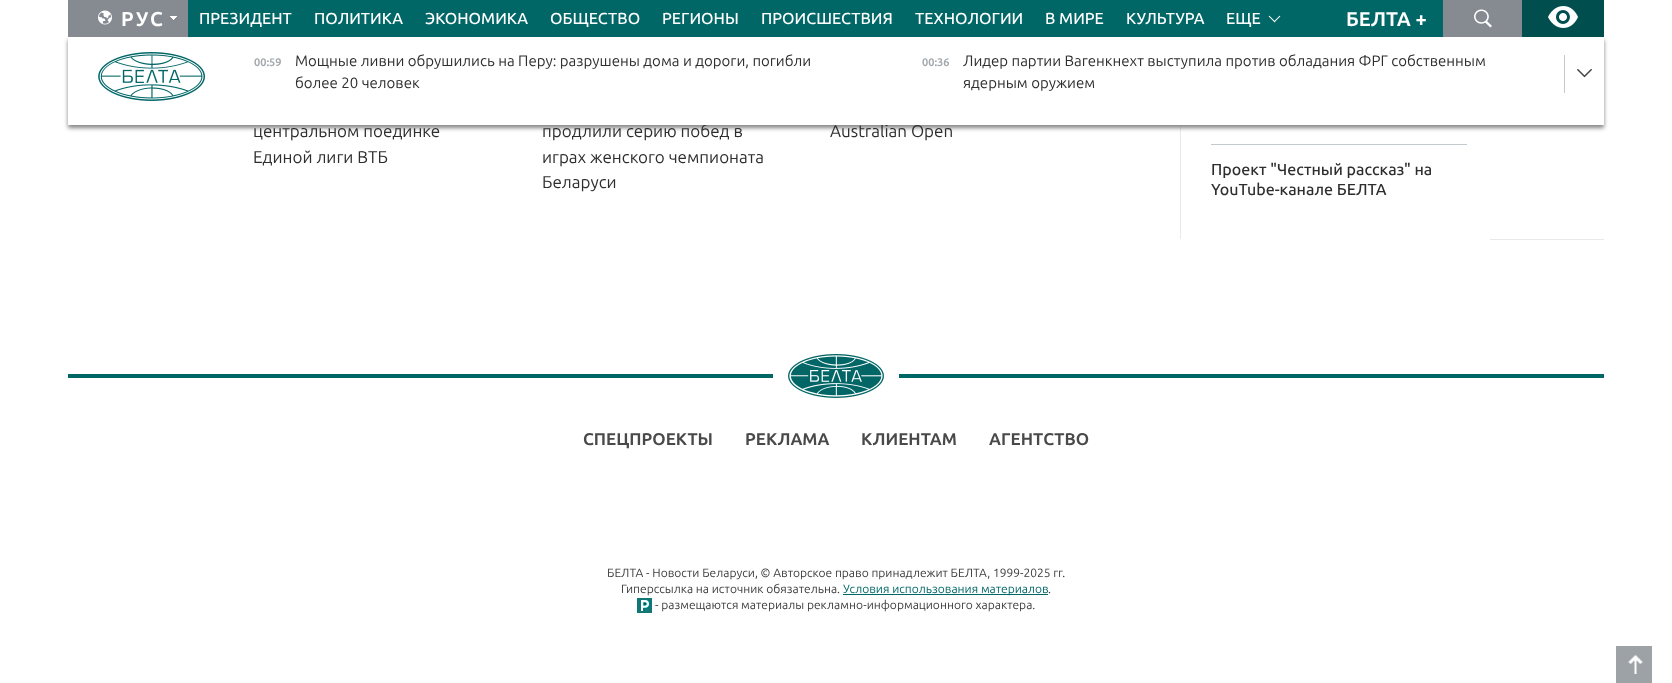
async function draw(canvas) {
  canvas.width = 1672;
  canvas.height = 683;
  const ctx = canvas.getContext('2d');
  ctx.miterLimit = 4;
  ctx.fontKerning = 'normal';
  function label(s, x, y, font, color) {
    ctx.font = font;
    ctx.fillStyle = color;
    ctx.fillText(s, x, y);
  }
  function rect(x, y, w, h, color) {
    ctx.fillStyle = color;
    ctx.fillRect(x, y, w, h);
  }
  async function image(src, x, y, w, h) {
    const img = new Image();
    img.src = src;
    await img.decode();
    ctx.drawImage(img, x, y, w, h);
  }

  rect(0, 0, 1672, 683, '#fff');
  rect(1180, 125, 1, 114, '#e6eaed');
  ctx.fillStyle = '#646464cc';
  ctx.filter = 'blur(2px)';
  ctx.beginPath();
  ctx.rect(68, 40, 1536, 88);
  ctx.fill();
  ctx.filter = 'none';
  rect(188, 0, 1255, 37, '#066');
  rect(68, 0, 120, 37, '#858b90');
  await image('assets/img1.png', 98, 10, 14, 15);
  ctx.letterSpacing = '2px';
  label('РУС', 121, 26, 'bold 20px Ubuntu', '#fff');
  await image('assets/img2.png', 170, 16, 7, 4);
  ctx.letterSpacing = '0px';
  label('ПРЕЗИДЕНТ', 199, 24, '500 16px Ubuntu', '#fff');
  label('ПОЛИТИКА', 314, 24, '500 16px Ubuntu', '#fff');
  label('ЭКОНОМИКА', 425, 24, '500 16px Ubuntu', '#fff');
  label('ОБЩЕСТВО', 550, 24, '500 16px Ubuntu', '#fff');
  label('РЕГИОНЫ', 662, 24, '500 16px Ubuntu', '#fff');
  label('ПРОИСШЕСТВИЯ', 761, 24, '500 16px Ubuntu', '#fff');
  label('ТЕХНОЛОГИИ', 915, 24, '500 16px Ubuntu', '#fff');
  label('В МИРЕ', 1045, 24, '500 16px Ubuntu', '#fff');
  label('КУЛЬТУРА', 1126, 24, '500 16px Ubuntu', '#fff');
  label('ЕЩЕ', 1226, 24, '500 16px Ubuntu', '#fff');
  await image('assets/img3.png', 1268, 15, 13, 8);
  label('БЕЛТА +', 1346, 26, 'bold 20px Ubuntu', '#fff');
  rect(1443, 0, 79, 37, '#858b90');
  await image('assets/img4.png', 1474, 9, 18, 19);
  rect(1522, 0, 82, 37, '#004e4e');
  await image('assets/img5.png', 1548, 6, 30, 22);
  label('продлили серию побед в', 542, 137, '17px Ubuntu', '#2e2e2e');
  label('Australian Open', 830, 137, '17px Ubuntu', '#2e2e2e');
  rect(68, 37, 1536, 88, '#fff');
  await image('assets/img6.png', 98, 52, 107, 49);
  label('00:59', 254, 66, 'bold 11px Ubuntu', '#a3a9ad');
  label('Мощные ливни обрушились на Перу: разрушены дома и дороги, погибли', 295, 66, '15px Ubuntu', '#2e2e2e');
  label('более 20 человек', 295, 88, '15px Ubuntu', '#2e2e2e');
  label('00:36', 922, 66, 'bold 11px Ubuntu', '#a3a9ad');
  label('Лидер партии Вагенкнехт выступила против обладания ФРГ собственным', 963, 66, '15px Ubuntu', '#2e2e2e');
  label('ядерным оружием', 963, 88, '15px Ubuntu', '#2e2e2e');
  await image('assets/img7.png', 1577, 69, 15, 9);
  rect(1564, 55, 1, 38, '#c8c8c8');
  label('центральном поединке', 253, 137, '17px Ubuntu', '#2e2e2e');
  label('Единой лиги ВТБ', 253, 163, '17px Ubuntu', '#2e2e2e');
  label('играх женского чемпионата', 542, 163, '17px Ubuntu', '#2e2e2e');
  label('Беларуси', 542, 188, '17px Ubuntu', '#2e2e2e');
  rect(1211, 144, 256, 1, '#c3cace');
  label('Проект "Честный рассказ" на', 1211, 175, '500 16px Ubuntu', '#2e2e2e');
  label('YouTube-канале БЕЛТА', 1211, 195, '500 16px Ubuntu', '#2e2e2e');
  rect(1490, 239, 114, 1, '#e6eaed');
  rect(68, 374, 1536, 4, '#066');
  rect(773, 374, 126, 4, '#fff');
  await image('assets/img8.png', 788, 354, 96, 44);
  label('СПЕЦПРОЕКТЫ', 583, 445, 'bold 17px Ubuntu', '#494949');
  label('РЕКЛАМА', 745, 445, 'bold 17px Ubuntu', '#494949');
  label('КЛИЕНТАМ', 861, 445, 'bold 17px Ubuntu', '#494949');
  label('АГЕНТСТВО', 989, 445, 'bold 17px Ubuntu', '#494949');
  label('БЕЛТА - Новости Беларуси, © Авторское право принадлежит БЕЛТА, 1999-2025 гг.', 607, 577, '12px Ubuntu', '#3c3c3c');
  label('Гиперссылка на источник обязательна.', 621, 593, '12px Ubuntu', '#3c3c3c');
  rect(843, 594, 205, 1, '#066');
  label('Условия использования материалов', 843, 593, '12px Ubuntu', '#066');
  label('.', 1048, 593, '12px Ubuntu', '#3c3c3c');
  await image('assets/img9.png', 637, 598, 15, 15);
  label('- размещаются материалы рекламно-информационного характера.', 655, 609, '12px Ubuntu', '#3c3c3c');
  await image('assets/img10.png', 1616, 646, 36, 37);
}

draw(document.querySelector('canvas'));
